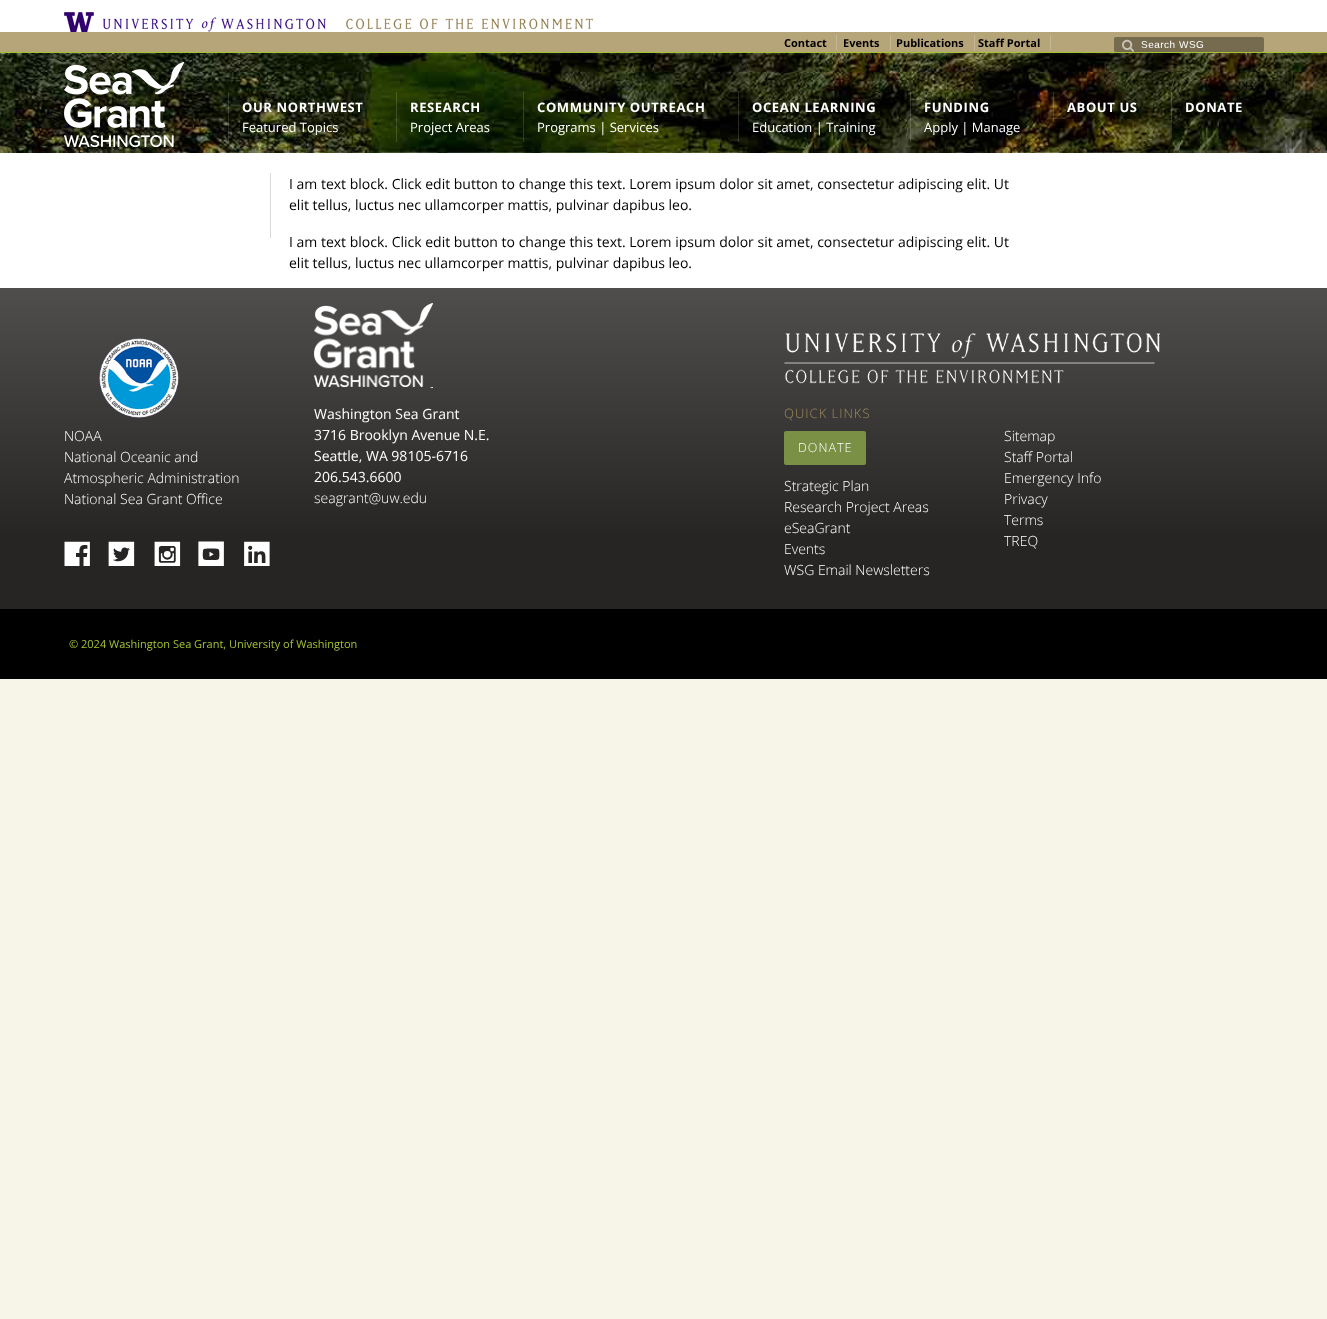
async function draw(canvas) {
  canvas.width = 1327;
  canvas.height = 1319;
  const ctx = canvas.getContext('2d');
  ctx.miterLimit = 4;
  ctx.fontKerning = 'normal';
  function label(s, x, y, font, color) {
    ctx.font = font;
    ctx.fillStyle = color;
    ctx.fillText(s, x, y);
  }
  function rect(x, y, w, h, color) {
    ctx.fillStyle = color;
    ctx.fillRect(x, y, w, h);
  }
  function roundedRect(x, y, w, h, r, color) {
    ctx.fillStyle = color;
    ctx.beginPath();
    ctx.roundRect(x, y, w, h, r);
    ctx.fill();
  }
  async function image(src, x, y, w, h) {
    const img = new Image();
    img.src = src;
    await img.decode();
    ctx.drawImage(img, x, y, w, h);
  }
  let gradient;

  rect(0, 0, 1327, 1319, '#f7f4e8');
  rect(0, 0, 1327, 32, '#fff');
  await image('assets/img1.png', 64, 12, 262, 20);
  await image('assets/img2.png', 346, 18, 247, 12);
  rect(0, 32, 1327, 20, '#b7a57a');
  label('Contact', 784, 47, 'bold 11px Open Sans', '#000');
  label('Events', 843, 47, 'bold 11px Open Sans', '#000');
  rect(836, 35, 1, 15, '#c5b795');
  label('Publications', 896, 47, 'bold 11px Open Sans', '#000');
  rect(890, 35, 1, 15, '#c5b795');
  label('Staff Portal', 978, 47, 'bold 11px Open Sans', '#000');
  rect(974, 35, 1, 15, '#c5b795');
  rect(1050, 35, 1, 15, '#c5b795');
  roundedRect(1114, 37, 150, 15, 2, '#776b4f');
  await image('assets/img3.png', 1122, 39, 12, 13);
  ctx.letterSpacing = '0.5px';
  label('Search WSG', 1141, 48, '10px Liberation Sans', '#fff');
  rect(0, 52, 1327, 1, '#a3c232');
  await image('assets/img4.png', 0, 53, 1327, 100);
  await image('assets/img5.png', 64, 62, 120, 85);
  rect(228, 92, 1, 50, '#ffffff26');
  ctx.letterSpacing = '0.6px';
  label('OUR NORTHWEST', 242, 112, 'bold 13px Open Sans', '#fff');
  ctx.letterSpacing = '0px';
  label('Featured Topics', 242, 132, '13px Open Sans', '#fff');
  rect(396, 92, 1, 50, '#ffffff26');
  ctx.letterSpacing = '0.6px';
  label('RESEARCH', 410, 112, 'bold 13px Open Sans', '#fff');
  ctx.letterSpacing = '0px';
  label('Project Areas', 410, 132, '13px Open Sans', '#fff');
  rect(523, 92, 1, 50, '#ffffff26');
  ctx.letterSpacing = '0.6px';
  label('COMMUNITY OUTREACH', 537, 112, 'bold 13px Open Sans', '#fff');
  ctx.letterSpacing = '0px';
  label('Programs | Services', 537, 132, '13px Open Sans', '#fff');
  rect(738, 92, 1, 50, '#ffffff26');
  ctx.letterSpacing = '0.6px';
  label('OCEAN LEARNING', 752, 112, 'bold 13px Open Sans', '#fff');
  ctx.letterSpacing = '0px';
  label('Education | Training', 752, 132, '13px Open Sans', '#fff');
  rect(910, 92, 1, 50, '#ffffff26');
  ctx.letterSpacing = '0.6px';
  label('FUNDING', 924, 112, 'bold 13px Open Sans', '#fff');
  ctx.letterSpacing = '0px';
  label('Apply | Manage', 924, 132, '13px Open Sans', '#fff');
  rect(1053, 92, 1, 30, '#ffffff26');
  ctx.letterSpacing = '0.6px';
  label('ABOUT US', 1067, 112, 'bold 13px Open Sans', '#fff');
  rect(1171, 92, 1, 30, '#ffffff26');
  label('DONATE', 1185, 112, 'bold 13px Open Sans', '#fff');
  rect(0, 153, 1327, 135, '#fff');
  rect(270, 173, 1, 65, '#d9d9d9');
  ctx.letterSpacing = '0px';
  label('I am text block. Click edit button to change this text. Lorem ipsum dolor sit amet, consectetur adipiscing elit. Ut', 289, 189, '14px Open Sans', '#000');
  label('elit tellus, luctus nec ullamcorper mattis, pulvinar dapibus leo.', 289, 210, '14px Open Sans', '#000');
  label('I am text block. Click edit button to change this text. Lorem ipsum dolor sit amet, consectetur adipiscing elit. Ut', 289, 247, '14px Open Sans', '#000');
  label('elit tellus, luctus nec ullamcorper mattis, pulvinar dapibus leo.', 289, 268, '14px Open Sans', '#000');
  gradient = ctx.createLinearGradient(664, 288, 664, 679);
  gradient.addColorStop(0, '#4f4e4c');
  gradient.addColorStop(0.64, '#262524');
  ctx.fillStyle = gradient;
  ctx.fillRect(0, 288, 1327, 321);
  await image('assets/img6.png', 99, 338, 80, 80);
  label('NOAA', 64, 441, '300 14px Open Sans', '#fff');
  label('National Oceanic and', 64, 462, '300 14px Open Sans', '#fff');
  label('Atmospheric Administration', 64, 483, '300 14px Open Sans', '#fff');
  label('National Sea Grant Office', 64, 504, '300 14px Open Sans', '#fff');
  await image('assets/img7.png', 64, 541, 26, 25);
  await image('assets/img8.png', 108, 541, 27, 25);
  await image('assets/img9.png', 154, 541, 27, 25);
  await image('assets/img10.png', 198, 541, 26, 25);
  await image('assets/img11.png', 244, 541, 26, 25);
  await image('assets/img12.png', 314, 303, 119, 85);
  label('Washington Sea Grant', 314, 419, '14px Open Sans', '#fff');
  label('3716 Brooklyn Avenue N.E.', 314, 440, '14px Open Sans', '#fff');
  label('Seattle, WA 98105-6716', 314, 461, '14px Open Sans', '#fff');
  label('206.543.6600', 314, 482, '14px Open Sans', '#fff');
  label('seagrant@uw.edu', 314, 503, '300 14px Open Sans', '#fff');
  await image('assets/img13.png', 784, 333, 377, 31);
  await image('assets/img14.png', 784, 369, 280, 15);
  ctx.letterSpacing = '1px';
  label('QUICK LINKS', 784, 418, '300 13px Open Sans', '#a18c5d');
  roundedRect(784, 431, 82, 34, 2, '#7a9045');
  label('DONATE', 798, 452, '300 12.5px Open Sans', '#fff');
  ctx.letterSpacing = '0px';
  label('Strategic Plan', 784, 491, '300 14px Open Sans', '#fff');
  label('Research Project Areas', 784, 512, '300 14px Open Sans', '#fff');
  label('eSeaGrant', 784, 533, '300 14px Open Sans', '#fff');
  label('Events', 784, 554, '300 14px Open Sans', '#fff');
  label('WSG Email Newsletters', 784, 575, '300 14px Open Sans', '#fff');
  label('Sitemap', 1004, 441, '300 14px Open Sans', '#fff');
  label('Staff Portal', 1004, 462, '300 14px Open Sans', '#fff');
  label('Emergency Info', 1004, 483, '300 14px Open Sans', '#fff');
  label('Privacy', 1004, 504, '300 14px Open Sans', '#fff');
  label('Terms', 1004, 525, '300 14px Open Sans', '#fff');
  label('TREQ', 1004, 546, '300 14px Open Sans', '#fff');
  rect(0, 609, 1327, 70, '#000');
  label('© 2024 Washington Sea Grant, University of Washington', 69, 648, '11px Open Sans', '#a3c232');
}

draw(document.querySelector('canvas'));
